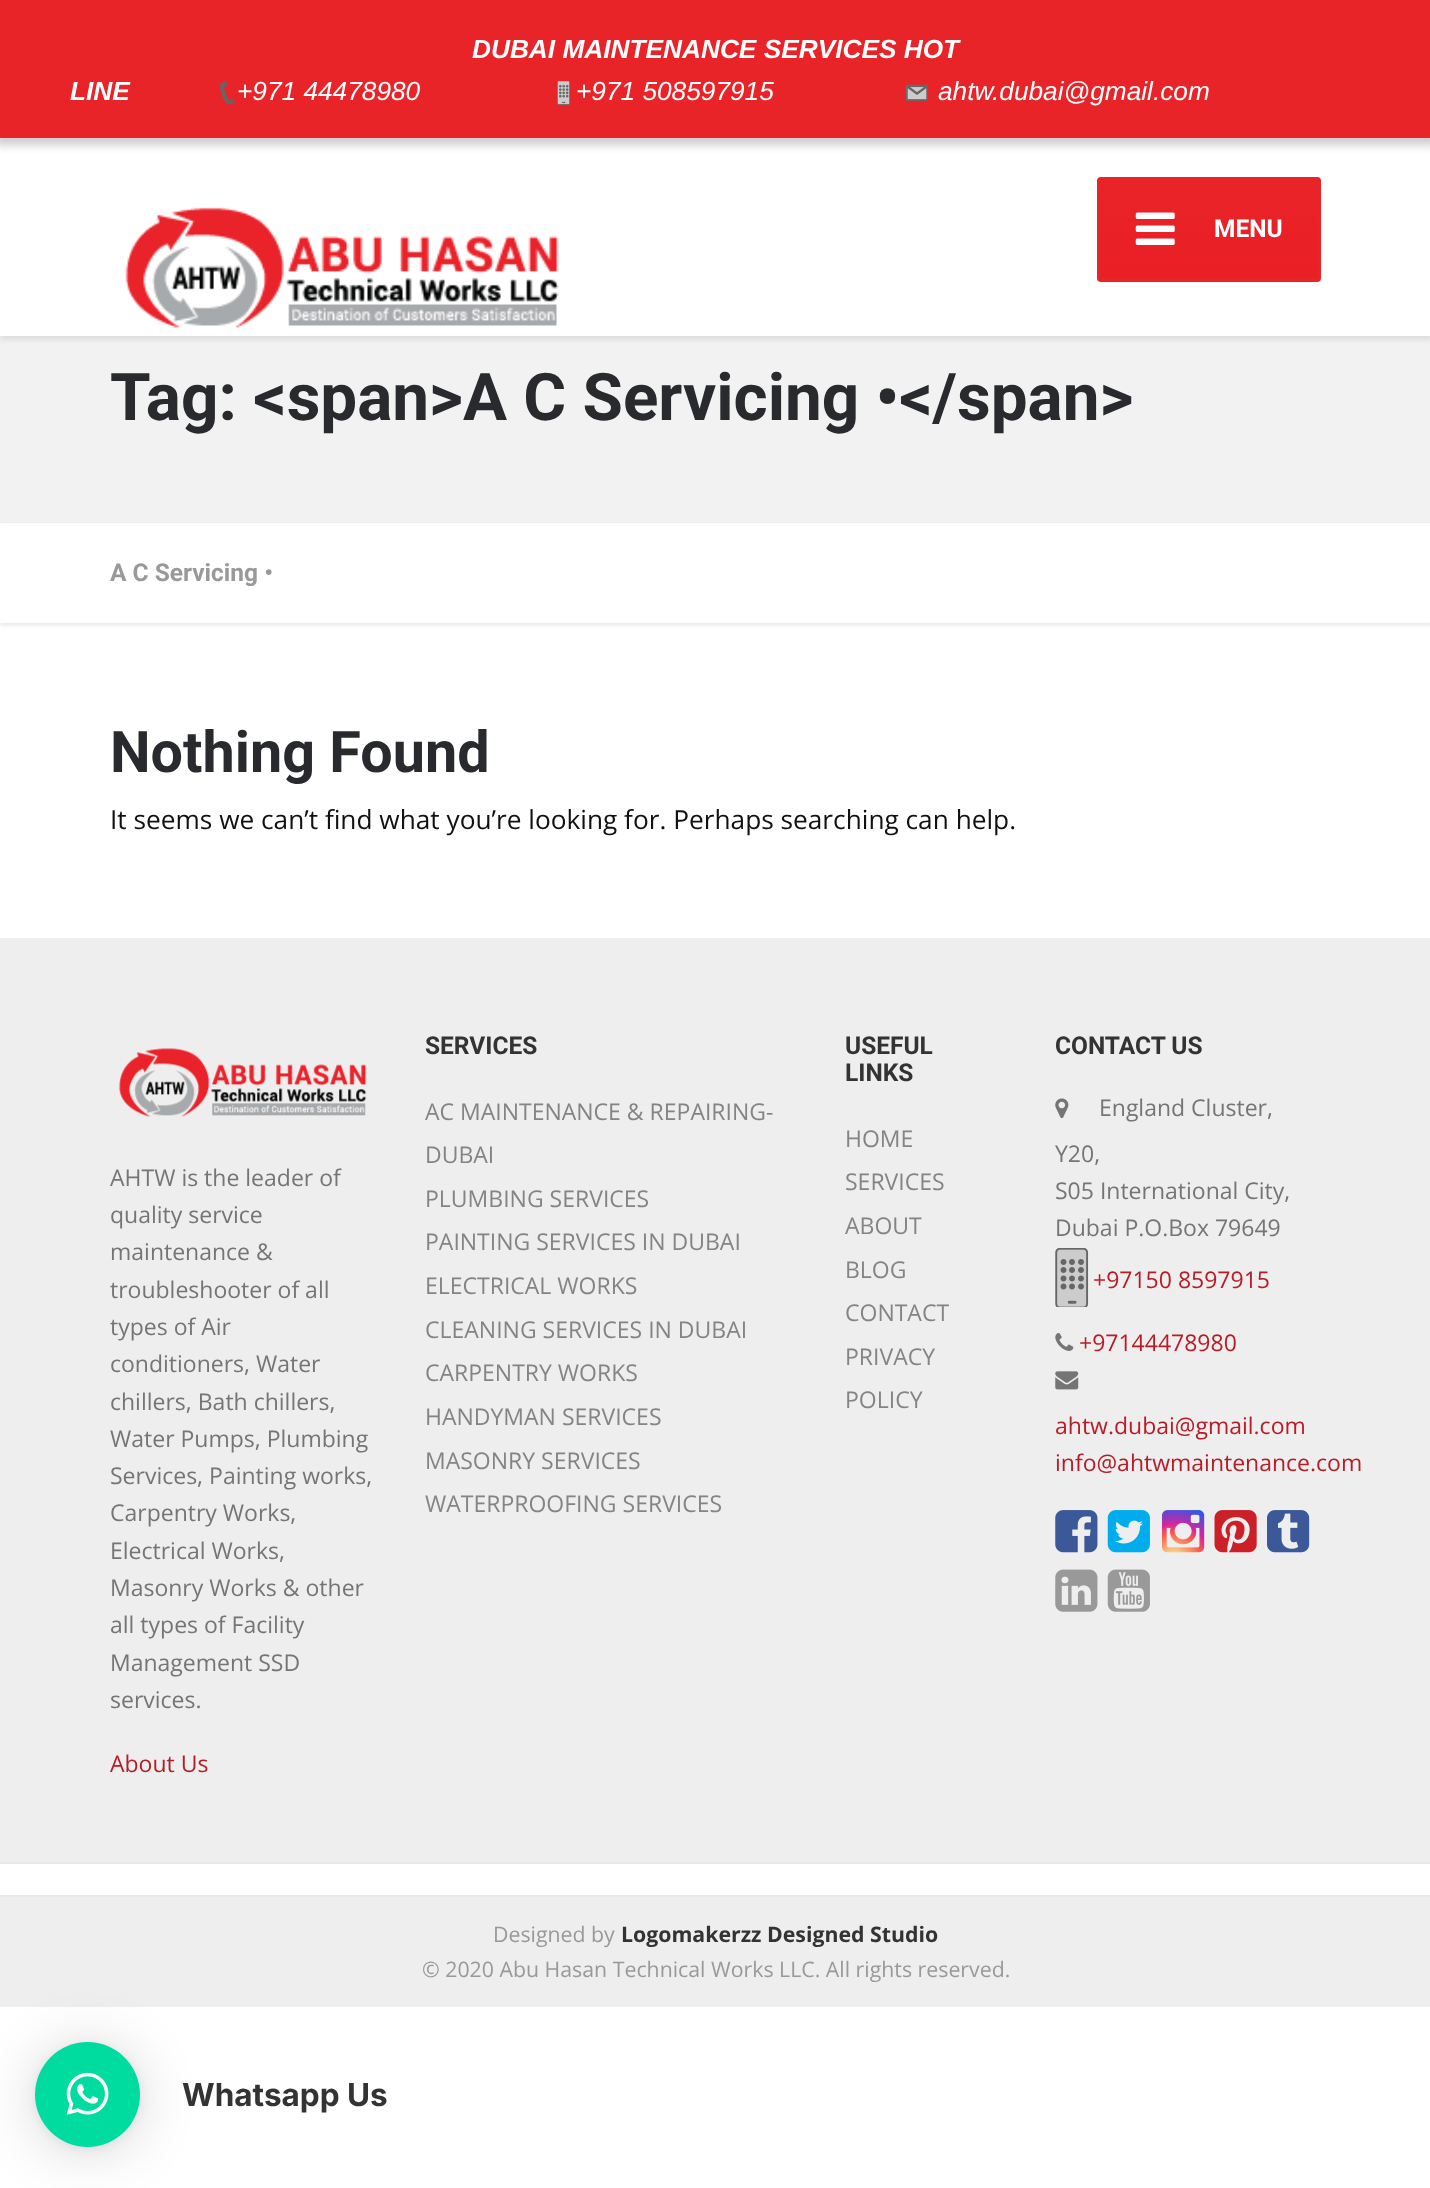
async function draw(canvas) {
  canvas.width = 1430;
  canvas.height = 2188;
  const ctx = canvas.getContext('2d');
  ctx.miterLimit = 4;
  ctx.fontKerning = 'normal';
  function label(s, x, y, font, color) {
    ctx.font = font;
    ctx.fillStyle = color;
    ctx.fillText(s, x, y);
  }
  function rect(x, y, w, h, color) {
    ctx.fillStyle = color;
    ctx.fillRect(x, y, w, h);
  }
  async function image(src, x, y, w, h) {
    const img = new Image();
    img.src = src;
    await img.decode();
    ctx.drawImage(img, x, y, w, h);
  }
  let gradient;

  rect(0, 0, 1430, 2188, '#fff');
  rect(0, 336, 1430, 186, '#f2f2f2');
  ctx.fillStyle = '#dedede';
  ctx.filter = 'blur(2.5px)';
  ctx.beginPath();
  ctx.rect(0, 142, 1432, 198);
  ctx.fill();
  ctx.filter = 'none';
  rect(0, 138, 1430, 198, '#fff');
  ctx.fillStyle = '#ccc';
  ctx.filter = 'blur(5px)';
  ctx.beginPath();
  ctx.rect(-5, -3, 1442, 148);
  ctx.fill();
  ctx.filter = 'none';
  rect(0, 0, 1430, 138, '#e92429');
  label('DUBAI MAINTENANCE SERVICES HOT', 472, 58, 'italic bold 26.25px Liberation Sans', '#fff');
  label('LINE', 70, 100, 'italic bold 26.25px Liberation Sans', '#fff');
  await image('assets/img1.png', 220, 81, 16, 24);
  label('+971 44478980', 237, 100, 'italic 26.25px Liberation Sans', '#fff');
  await image('assets/img2.png', 556, 81, 15, 24);
  label('+971 508597915', 576, 100, 'italic 26.25px Liberation Sans', '#fff');
  await image('assets/img3.png', 906, 84, 22, 17);
  label('ahtw.dubai@gmail.com', 938, 100, 'italic 26.25px Liberation Sans', '#fff');
  await image('assets/img4.png', 125, 207, 434, 122);
  gradient = ctx.createLinearGradient(1209, 180, 1209, 278);
  gradient.addColorStop(0, '#e92429');
  gradient.addColorStop(1, '#e91f24');
  ctx.fillStyle = gradient;
  ctx.fillRect(1097, 180, 224, 98);
  ctx.beginPath();
  ctx.roundRect(1099, 179, 220, 101, 2);
  ctx.strokeStyle = '#e92429';
  ctx.lineWidth = 4;
  ctx.stroke();
  await image('assets/img5.png', 1135, 212, 40, 33);
  label('MENU', 1214, 237, 'bold 24.5px Roboto', '#fff');
  rect(0, 522, 1430, 1, '#efefef');
  label('Tag: <span>A C Servicing •<\/span>', 110, 420, 'bold 65.6px Roboto', '#282a2e');
  ctx.fillStyle = '#0000001a';
  ctx.filter = 'blur(2px)';
  ctx.beginPath();
  ctx.rect(0, 525, 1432, 100);
  ctx.fill();
  ctx.filter = 'none';
  rect(0, 523, 1430, 100, '#fff');
  label('A C Servicing •', 110, 581, 'bold 24.5px Roboto', '#999');
  label('Nothing Found', 110, 772, 'bold 57.5px Roboto', '#282a2e');
  label('It seems we can’t find what you’re looking for. Perhaps searching can help.', 110, 829, '26.25px Open Sans', '#111');
  rect(0, 938, 1430, 924, '#eee');
  rect(0, 1862, 1430, 2, '#e9e9e9');
  await image('assets/img6.png', 119, 1048, 248, 69);
  label('AHTW is the leader of', 110, 1186, '23px Open Sans', '#757575');
  label('quality service', 110, 1223, '23px Open Sans', '#757575');
  label('maintenance &', 110, 1260, '23px Open Sans', '#757575');
  label('troubleshooter of all', 110, 1298, '23px Open Sans', '#757575');
  label('types of Air', 110, 1335, '23px Open Sans', '#757575');
  label('conditioners, Water', 110, 1372, '23px Open Sans', '#757575');
  label('chillers, Bath chillers,', 110, 1410, '23px Open Sans', '#757575');
  label('Water Pumps, Plumbing', 110, 1447, '23px Open Sans', '#757575');
  label('Services, Painting works,', 110, 1484, '23px Open Sans', '#757575');
  label('Carpentry Works,', 110, 1521, '23px Open Sans', '#757575');
  label('Electrical Works,', 110, 1559, '23px Open Sans', '#757575');
  label('Masonry Works & other', 110, 1596, '23px Open Sans', '#757575');
  label('all types of Facility', 110, 1633, '23px Open Sans', '#757575');
  label('Management SSD', 110, 1671, '23px Open Sans', '#757575');
  label('services.', 110, 1708, '23px Open Sans', '#757575');
  label('About Us', 110, 1772, '23px Open Sans', '#b71c27');
  label('SERVICES', 425, 1054, 'bold 24.5px Roboto', '#333');
  label('AC MAINTENANCE & REPAIRING-', 425, 1120, '23px Open Sans', '#848484');
  label('DUBAI', 425, 1163, '23px Open Sans', '#848484');
  label('PLUMBING SERVICES', 425, 1207, '23px Open Sans', '#848484');
  label('PAINTING SERVICES IN DUBAI', 425, 1250, '23px Open Sans', '#848484');
  label('ELECTRICAL WORKS', 425, 1294, '23px Open Sans', '#848484');
  label('CLEANING SERVICES IN DUBAI', 425, 1338, '23px Open Sans', '#848484');
  label('CARPENTRY WORKS', 425, 1381, '23px Open Sans', '#848484');
  label('HANDYMAN SERVICES', 425, 1425, '23px Open Sans', '#848484');
  label('MASONRY SERVICES', 425, 1469, '23px Open Sans', '#848484');
  label('WATERPROOFING SERVICES', 425, 1512, '23px Open Sans', '#848484');
  label('USEFUL', 845, 1054, 'bold 24.5px Roboto', '#333');
  label('LINKS', 845, 1081, 'bold 24.5px Roboto', '#333');
  label('HOME', 845, 1147, '23px Open Sans', '#848484');
  label('SERVICES', 845, 1190, '23px Open Sans', '#848484');
  label('ABOUT', 845, 1234, '23px Open Sans', '#848484');
  label('BLOG', 845, 1278, '23px Open Sans', '#848484');
  label('CONTACT', 845, 1321, '23px Open Sans', '#848484');
  label('PRIVACY', 845, 1365, '23px Open Sans', '#848484');
  label('POLICY', 845, 1408, '23px Open Sans', '#848484');
  label('CONTACT US', 1055, 1054, 'bold 24.5px Roboto', '#333');
  await image('assets/img7.png', 1055, 1098, 14, 21);
  label('England Cluster,', 1099, 1116, '23px Open Sans', '#757575');
  label('Y20,', 1055, 1162, '23px Open Sans', '#757575');
  label('S05 International City,', 1055, 1199, '23px Open Sans', '#757575');
  label('Dubai P.O.Box 79649', 1055, 1236, '23px Open Sans', '#757575');
  await image('assets/img8.png', 1055, 1248, 34, 59);
  label('+97150 8597915', 1093, 1288, '23px Open Sans', '#b71c27');
  await image('assets/img9.png', 1055, 1333, 19, 18);
  label('+97144478980', 1079, 1351, '23px Open Sans', '#b71c27');
  await image('assets/img10.png', 1055, 1371, 24, 19);
  label('ahtw.dubai@gmail.com', 1055, 1434, '23px Open Sans', '#b71c27');
  label('info@ahtwmaintenance.com', 1055, 1471, '23px Open Sans', '#b71c27');
  await image('assets/img11.png', 1055, 1510, 43, 43);
  await image('assets/img12.png', 1107, 1510, 43, 43);
  await image('assets/img13.png', 1162, 1510, 43, 43);
  await image('assets/img14.png', 1214, 1510, 43, 43);
  await image('assets/img15.png', 1267, 1510, 43, 43);
  await image('assets/img16.png', 1055, 1569, 43, 43);
  await image('assets/img17.png', 1107, 1569, 43, 43);
  rect(0, 1897, 1430, 110, '#eee');
  rect(0, 1895, 1430, 2, '#e9e9e9');
  label('Designed by', 493, 1942, '21.3px Open Sans', '#999');
  label('Logomakerzz Designed Studio', 621, 1942, 'bold 21.3px Open Sans', '#333');
  label('© 2020 Abu Hasan Technical Works LLC. All rights reserved.', 422, 1977, '21.3px Open Sans', '#999');
  ctx.fillStyle = '#00000029';
  ctx.filter = 'blur(28px)';
  ctx.beginPath();
  ctx.roundRect(35, 2046, 105, 105, 52.5);
  ctx.fill();
  ctx.filter = 'none';
  ctx.fillStyle = '#0000000f';
  ctx.filter = 'blur(5px)';
  ctx.beginPath();
  ctx.roundRect(35, 2044, 105, 105, 52.5);
  ctx.fill();
  ctx.filter = 'none';
  ctx.fillStyle = '#00dba0';
  ctx.beginPath();
  ctx.arc(87.5, 2094.5, 52.5, 0, 2 * Math.PI);
  ctx.fill();
  await image('assets/img18.png', 66, 2072, 43, 43);
  label('Whatsapp Us', 182, 2106, 'bold 31.5px Inter', '#333');
}

draw(document.querySelector('canvas'));
